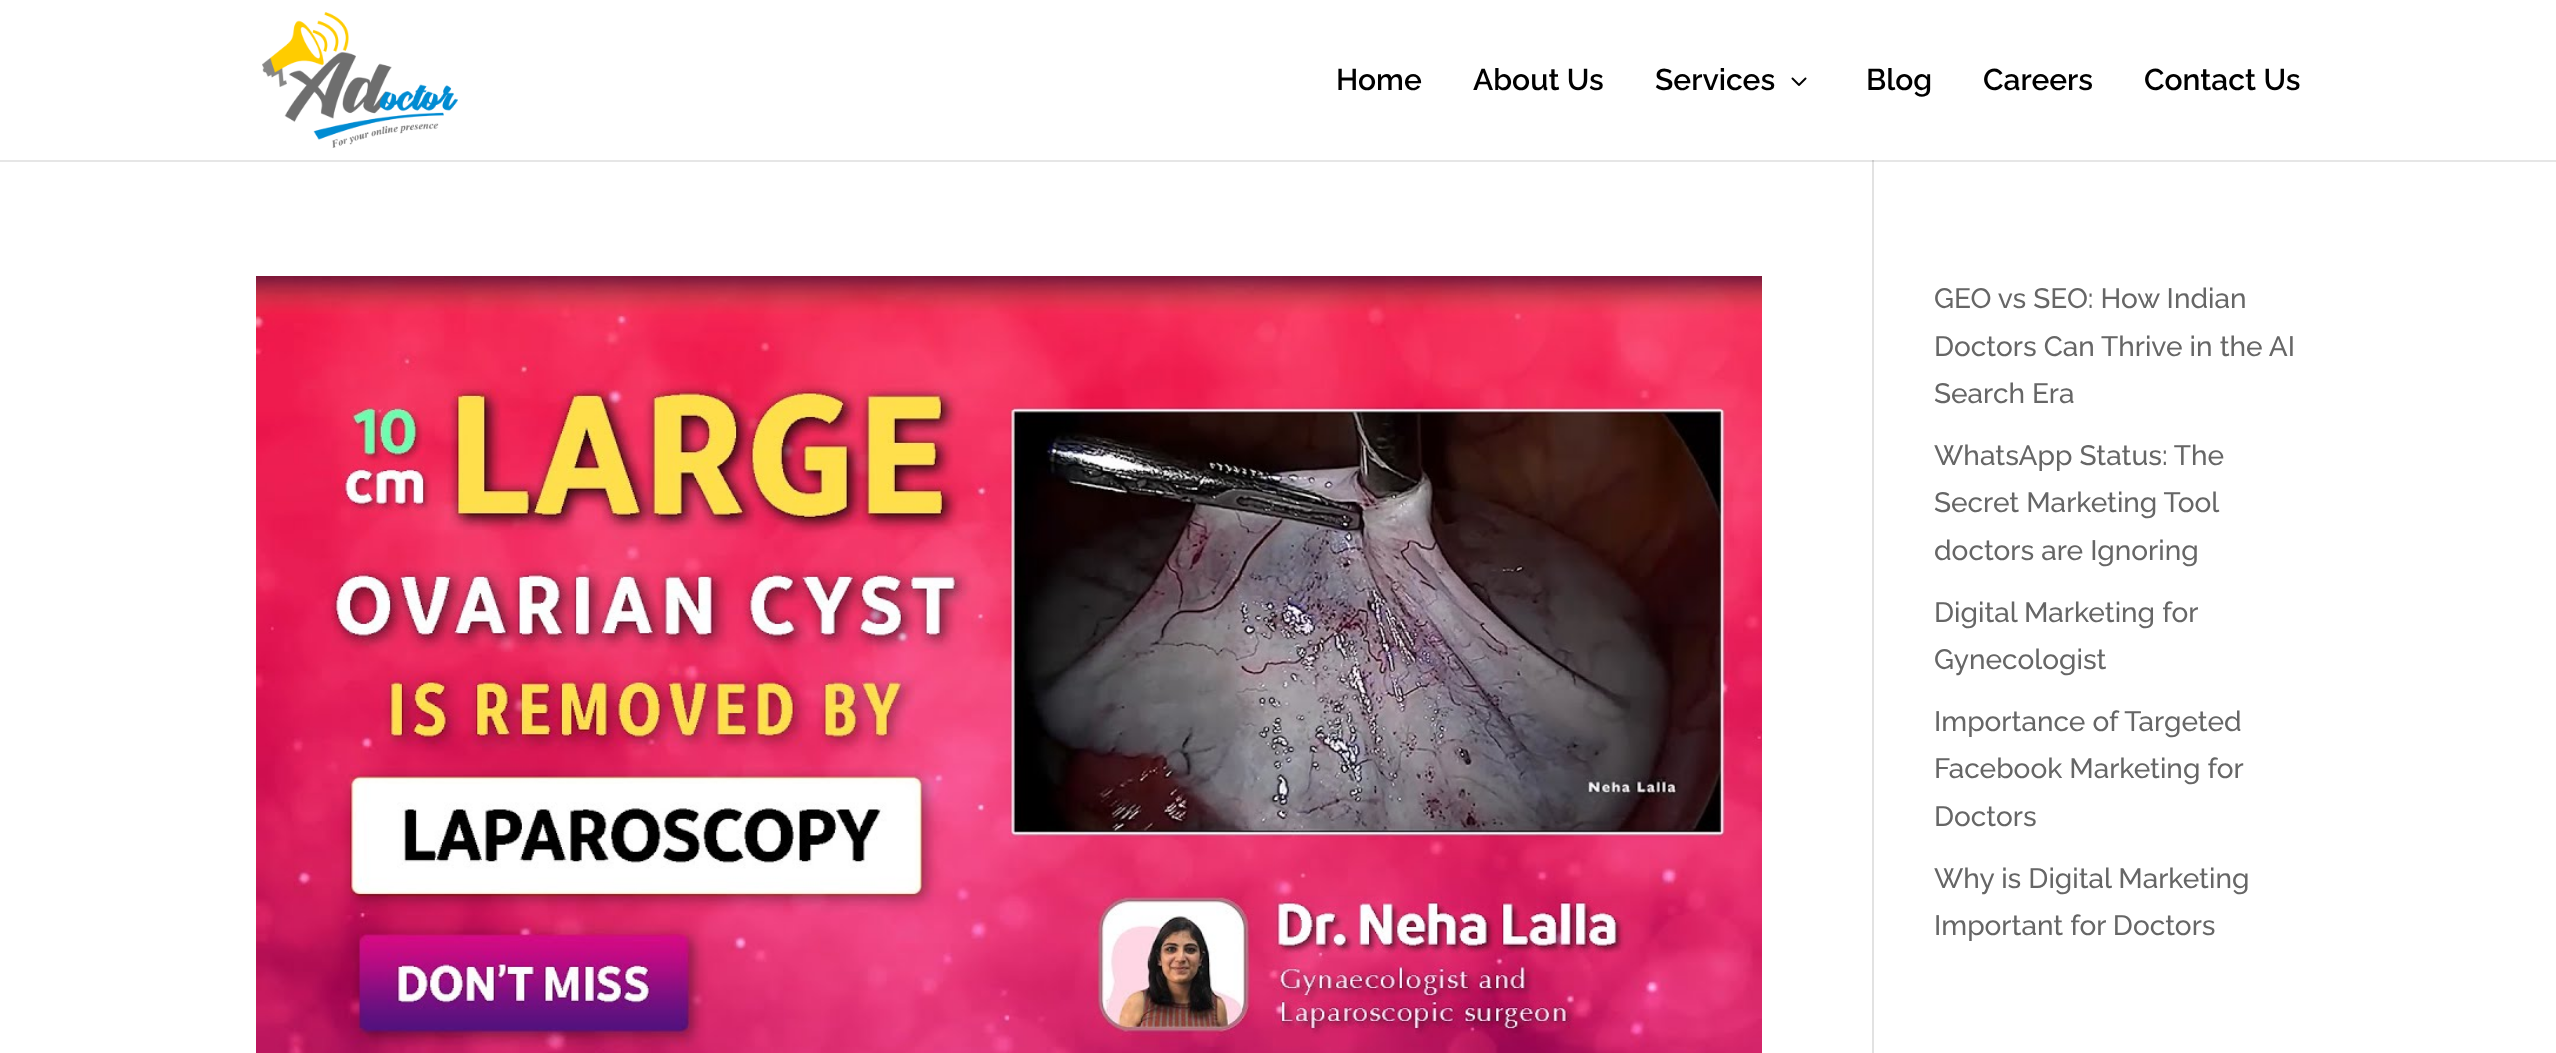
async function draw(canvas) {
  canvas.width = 2556;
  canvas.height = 1053;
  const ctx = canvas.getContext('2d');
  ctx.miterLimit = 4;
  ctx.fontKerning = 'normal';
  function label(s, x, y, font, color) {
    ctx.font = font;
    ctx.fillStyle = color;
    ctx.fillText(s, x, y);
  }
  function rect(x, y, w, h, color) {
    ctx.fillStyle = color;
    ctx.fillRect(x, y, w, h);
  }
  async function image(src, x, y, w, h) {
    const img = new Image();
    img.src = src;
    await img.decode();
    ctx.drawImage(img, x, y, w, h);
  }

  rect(0, 0, 2556, 1053, '#fff');
  rect(0, 160, 2556, 2, '#e6e6e6');
  await image('assets/img1.png', 262, 12, 196, 136);
  label('Home', 1336, 90, '600 30px Raleway', '#000');
  label('About Us', 1473, 90, '600 30px Raleway', '#000');
  label('Services', 1655, 90, '600 30px Raleway', '#000');
  await image('assets/img2.png', 1791, 77, 16, 9);
  label('Blog', 1866, 90, '600 30px Raleway', '#000');
  label('Careers', 1983, 90, '600 30px Raleway', '#000');
  label('Contact Us', 2144, 90, '600 30px Raleway', '#000');
  rect(1872, 160, 2, 893, '#e2e2e2');
  rect(1872, 160, 2, 2, '#cbcbcb');
  await image('assets/img3.png', 256, 276, 1506, 777);
  label('GEO vs SEO: How Indian', 1934, 308, '500 28px Raleway', '#666');
  label('Doctors Can Thrive in the AI', 1934, 356, '500 28px Raleway', '#666');
  label('Search Era', 1934, 403, '500 28px Raleway', '#666');
  label('WhatsApp Status: The', 1934, 465, '500 28px Raleway', '#666');
  label('Secret Marketing Tool', 1934, 512, '500 28px Raleway', '#666');
  label('doctors are Ignoring', 1934, 560, '500 28px Raleway', '#666');
  label('Digital Marketing for', 1934, 622, '500 28px Raleway', '#666');
  label('Gynecologist', 1934, 669, '500 28px Raleway', '#666');
  label('Importance of Targeted', 1934, 731, '500 28px Raleway', '#666');
  label('Facebook Marketing for', 1934, 778, '500 28px Raleway', '#666');
  label('Doctors', 1934, 826, '500 28px Raleway', '#666');
  label('Why is Digital Marketing', 1934, 888, '500 28px Raleway', '#666');
  label('Important for Doctors', 1934, 935, '500 28px Raleway', '#666');
}

draw(document.querySelector('canvas'));
